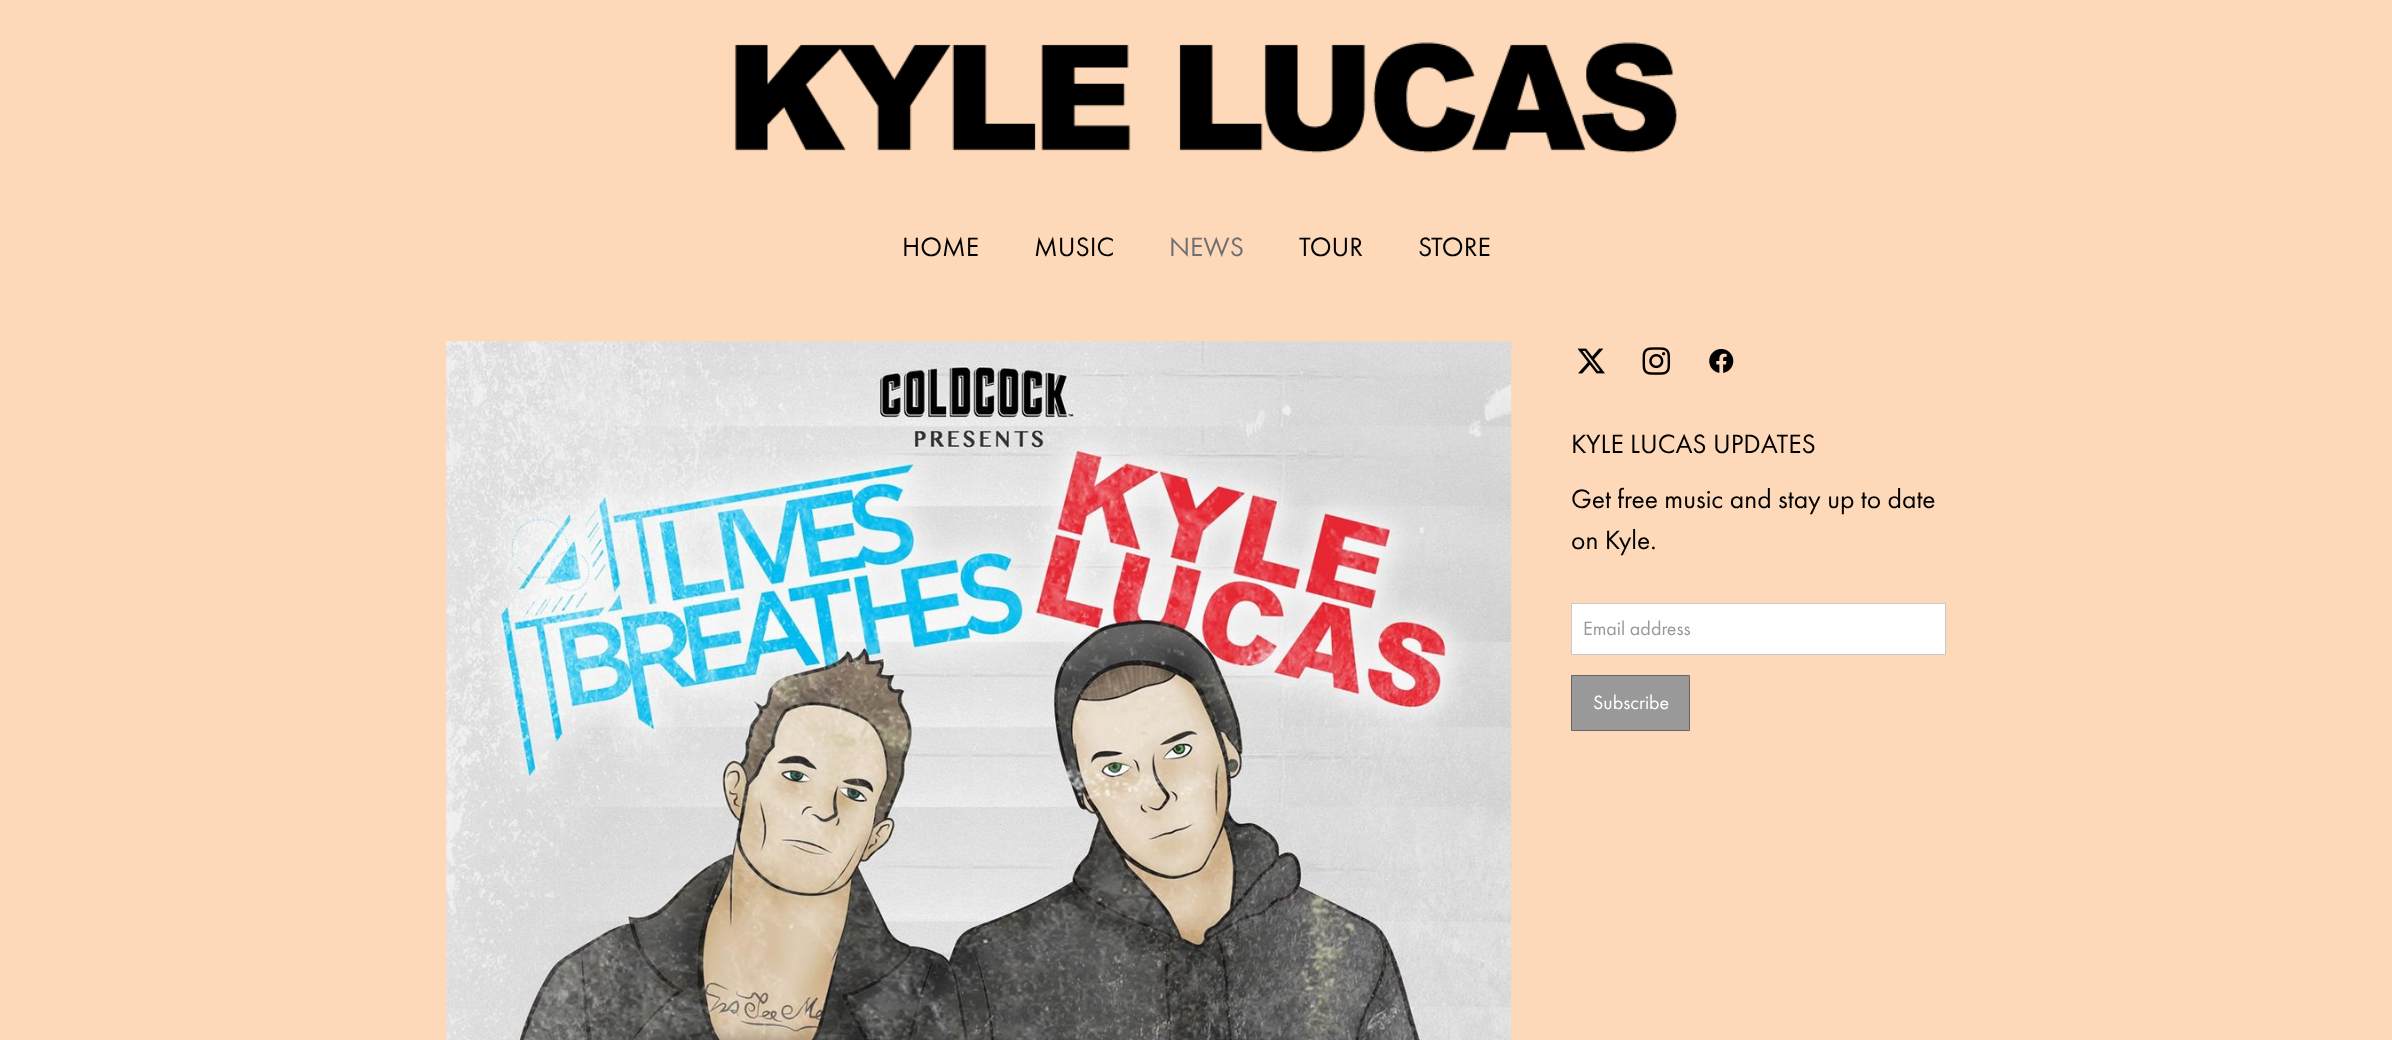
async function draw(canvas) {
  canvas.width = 2392;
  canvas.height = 1040;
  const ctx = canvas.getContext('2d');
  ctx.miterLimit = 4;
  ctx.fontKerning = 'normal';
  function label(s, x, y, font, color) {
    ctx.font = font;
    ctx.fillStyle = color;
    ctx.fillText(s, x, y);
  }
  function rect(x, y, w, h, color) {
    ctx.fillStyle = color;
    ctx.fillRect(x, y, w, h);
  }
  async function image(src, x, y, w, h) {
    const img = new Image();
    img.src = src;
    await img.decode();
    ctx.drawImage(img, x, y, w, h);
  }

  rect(0, 0, 2392, 1040, '#fdd9b9');
  await image('assets/img1.png', 734, 42, 943, 111);
  label('HOME', 902, 256, '27.5px Futura PT', '#000');
  label('MUSIC', 1034, 256, '27.5px Futura PT', '#000');
  label('NEWS', 1169, 256, '27.5px Futura PT', '#707070');
  label('TOUR', 1299, 256, '27.5px Futura PT', '#000');
  label('STORE', 1418, 256, '27.5px Futura PT', '#000');
  await image('assets/img2.png', 446, 341, 1066, 699);
  await image('assets/img3.png', 1577, 348, 28, 26);
  await image('assets/img4.png', 1642, 347, 29, 28);
  await image('assets/img5.png', 1709, 349, 25, 24);
  label('KYLE LUCAS UPDATES', 1571, 453, '27.5px Futura PT', '#000');
  label('Get free music and stay up to date', 1571, 508, '27.5px Futura PT', '#000');
  label('on Kyle.', 1571, 549, '27.5px Futura PT', '#000');
  ctx.fillStyle = '#fff';
  ctx.beginPath();
  ctx.rect(1571.5, 603.5, 374, 51);
  ctx.fill();
  ctx.strokeStyle = '#c8c8c8';
  ctx.stroke();
  label('Email address', 1583, 635, '20px Futura PT', '#999');
  ctx.beginPath();
  ctx.rect(1571.5, 675.5, 118, 55);
  ctx.fill();
  ctx.strokeStyle = '#666';
  ctx.stroke();
  label('Subscribe', 1593, 709, '20px Futura PT', '#fff');
}

draw(document.querySelector('canvas'));
